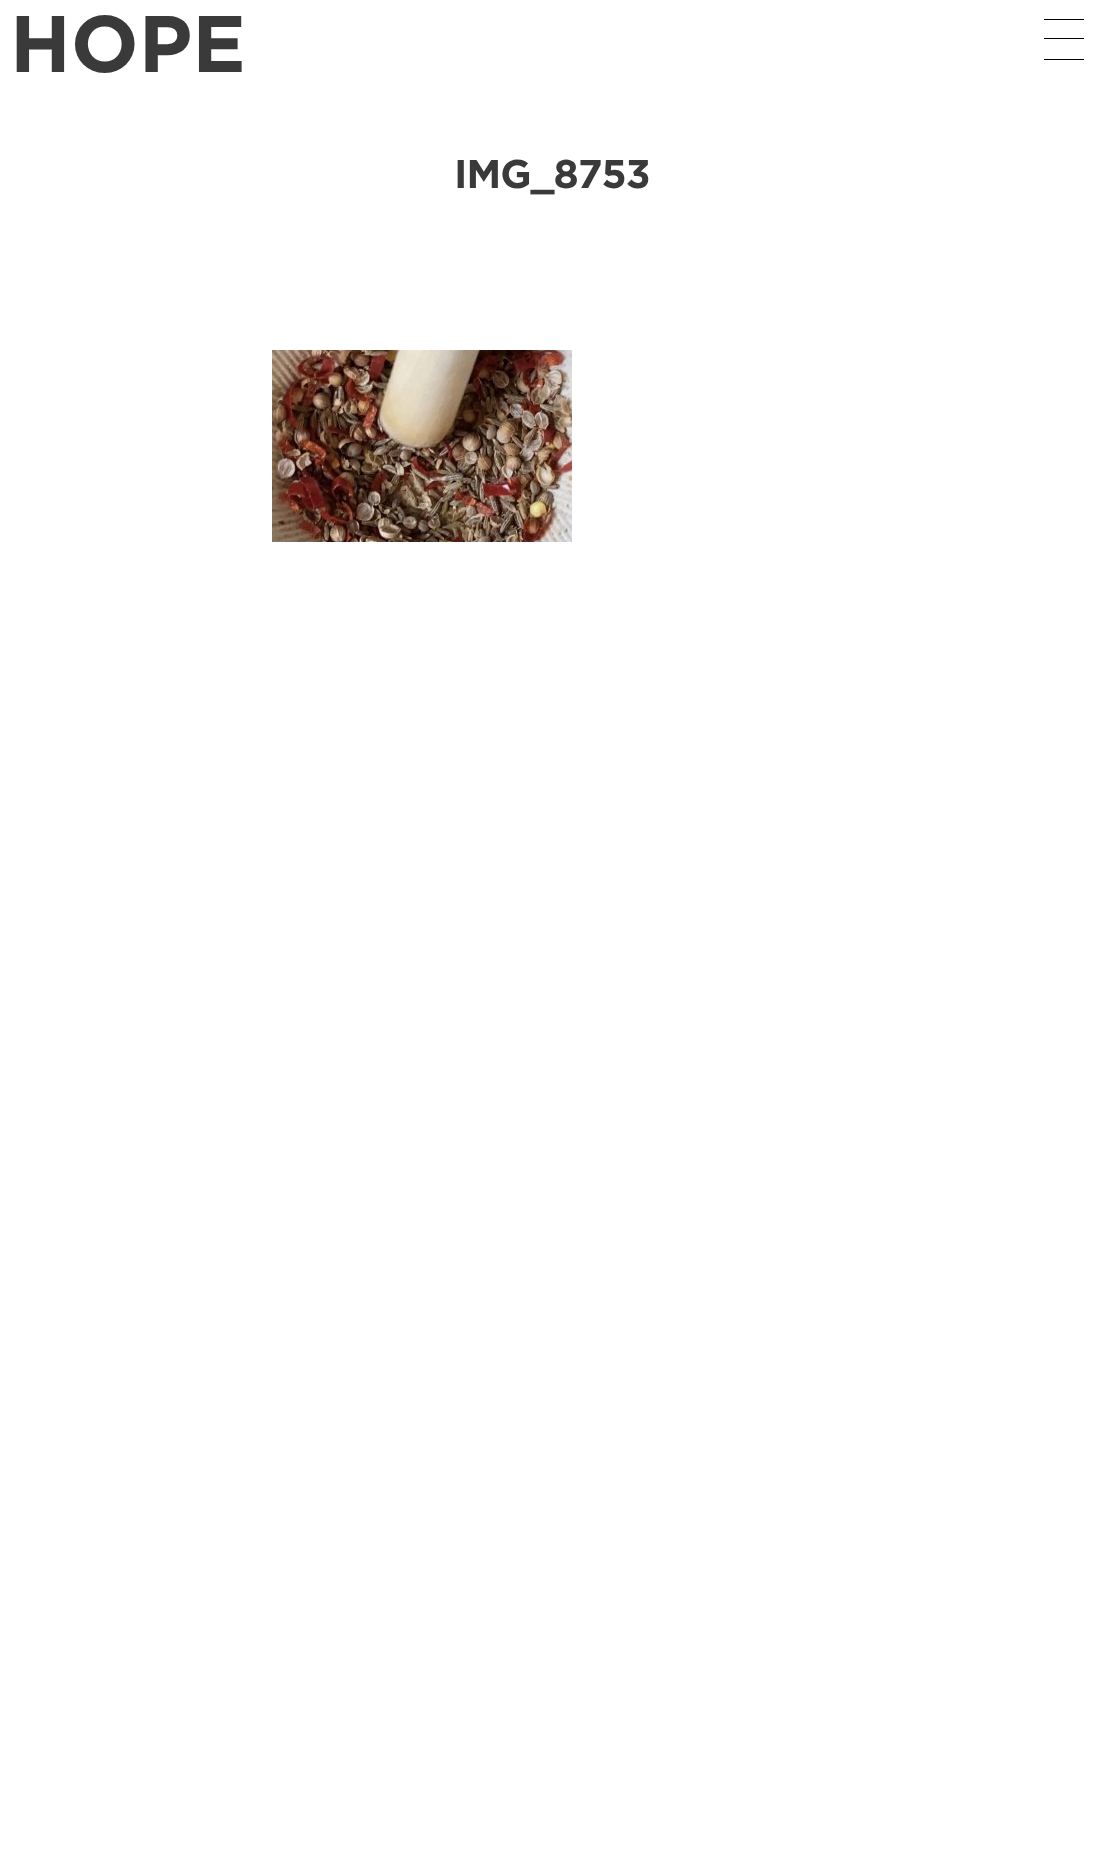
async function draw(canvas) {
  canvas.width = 1104;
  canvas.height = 1876;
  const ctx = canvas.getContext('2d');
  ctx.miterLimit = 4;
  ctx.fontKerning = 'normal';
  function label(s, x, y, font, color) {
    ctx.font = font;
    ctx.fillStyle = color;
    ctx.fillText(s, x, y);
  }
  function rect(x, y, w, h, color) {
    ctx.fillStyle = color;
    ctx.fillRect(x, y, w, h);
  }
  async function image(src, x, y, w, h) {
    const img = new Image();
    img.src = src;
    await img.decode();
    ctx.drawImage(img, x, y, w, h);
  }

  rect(0, 0, 1104, 1876, '#fff');
  label('HOPE', 10, 72, 'bold 80px Gotham', '#3a3a3a');
  rect(1044, 19, 40, 1, '#010101');
  rect(1044, 38, 40, 1, '#010101');
  rect(1044, 59, 40, 1, '#010101');
  ctx.letterSpacing = '-1px';
  label('IMG_8753', 454, 188, 'bold 40px Gotham', '#3a3a3a');
  await image('assets/img1.png', 272, 350, 300, 192);
}

draw(document.querySelector('canvas'));
